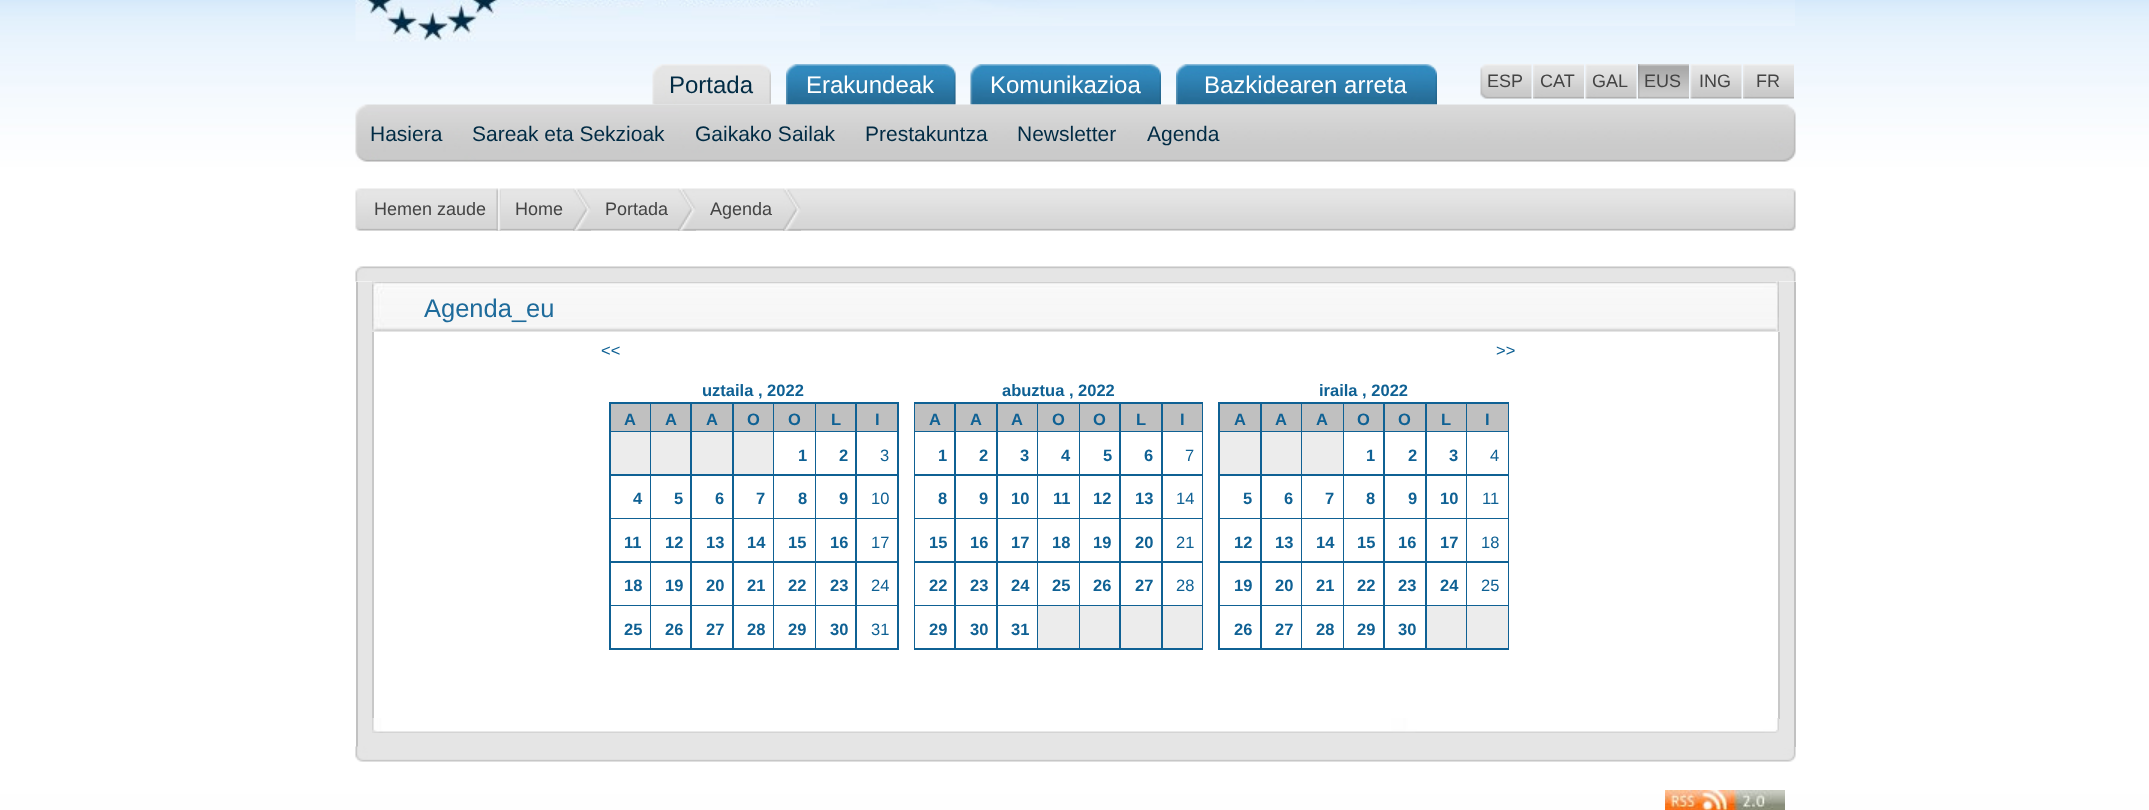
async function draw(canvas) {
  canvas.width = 2149;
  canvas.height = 810;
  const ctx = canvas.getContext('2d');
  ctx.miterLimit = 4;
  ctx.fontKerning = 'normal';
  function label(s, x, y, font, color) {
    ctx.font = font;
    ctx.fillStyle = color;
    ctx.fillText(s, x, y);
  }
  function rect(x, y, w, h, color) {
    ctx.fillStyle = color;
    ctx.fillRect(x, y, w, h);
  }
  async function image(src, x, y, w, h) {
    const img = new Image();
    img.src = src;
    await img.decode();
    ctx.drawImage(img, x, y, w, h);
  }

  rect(0, 0, 2149, 810, '#fff');
  await image('assets/img1.png', 0, 0, 2149, 810);
  await image('assets/img2.png', 820, 0, 975, 26);
  await image('assets/img3.png', 355, 0, 465, 42);
  await image('assets/img4.png', 652, 64, 119, 41);
  label('Portada', 669, 93, '24px Liberation Sans', '#012b44');
  await image('assets/img6.png', 786, 64, 170, 41);
  await image('assets/img7.png', 786, 64, 170, 41);
  await image('assets/img8.png', 970, 64, 191, 41);
  await image('assets/img9.png', 970, 64, 191, 41);
  await image('assets/img10.png', 1176, 104, 261, 1);
  await image('assets/img11.png', 1176, 64, 261, 41);
  await image('assets/img5.png', 355, 104, 1441, 58);
  label('Hasiera', 370, 141, '21px Liberation Sans', '#012b44');
  label('Sareak eta Sekzioak', 472, 141, '21px Liberation Sans', '#012b44');
  label('Gaikako Sailak', 695, 141, '21px Liberation Sans', '#012b44');
  label('Prestakuntza', 865, 141, '21px Liberation Sans', '#012b44');
  label('Newsletter', 1017, 141, '21px Liberation Sans', '#012b44');
  label('Agenda', 1147, 141, '21px Liberation Sans', '#012b44');
  label('Erakundeak', 806, 93, '24px Liberation Sans', '#fff');
  label('Komunikazioa', 990, 93, '24px Liberation Sans', '#fff');
  label('Bazkidearen arreta', 1204, 93, '24px Liberation Sans', '#fff');
  await image('assets/img12.png', 1480, 64, 52, 35);
  label('ESP', 1487, 87, '18px Liberation Sans', '#444');
  await image('assets/img13.png', 1533, 64, 51, 35);
  label('CAT', 1540, 87, '18px Liberation Sans', '#444');
  await image('assets/img14.png', 1585, 64, 52, 35);
  label('GAL', 1592, 87, '18px Liberation Sans', '#444');
  await image('assets/img15.png', 1638, 64, 51, 35);
  label('EUS', 1644, 87, '18px Liberation Sans', '#444');
  await image('assets/img14.png', 1690, 64, 52, 35);
  label('ING', 1699, 87, '18px Liberation Sans', '#444');
  await image('assets/img16.png', 1743, 64, 51, 35);
  label('FR', 1756, 87, '18px Liberation Sans', '#444');
  await image('assets/img17.png', 355, 188, 1441, 43);
  await image('assets/img18.png', 496, 188, 5, 43);
  label('Hemen zaude', 374, 215, '18px Liberation Sans', '#444');
  await image('assets/img19.png', 573, 188, 18, 43);
  label('Home', 515, 215, '18px Liberation Sans', '#444');
  await image('assets/img20.png', 678, 188, 18, 43);
  label('Portada', 605, 215, '18px Liberation Sans', '#444');
  await image('assets/img20.png', 783, 188, 18, 43);
  label('Agenda', 710, 215, '18px Liberation Sans', '#444');
  await image('assets/img21.png', 355, 266, 1441, 16);
  rect(358, 282, 1436, 465, '#e5e5e5');
  rect(1794, 282, 2, 465, '#c1c1c1');
  rect(356, 282, 2, 465, '#c1c1c1');
  await image('assets/img22.png', 372, 281, 1407, 50);
  label('Agenda_eu', 424, 317, '25.5px Liberation Sans', '#1e6b9b');
  rect(374, 332, 1404, 386, '#fff');
  rect(1778, 332, 2, 387, '#c8c8c8');
  rect(372, 332, 2, 387, '#c8c8c8');
  label('<<', 601, 356, '16.5px Liberation Sans', '#0f6194');
  label('>>', 1496, 356, '16.5px Liberation Sans', '#0f6194');
  label('uztaila , 2022', 702, 396, 'bold 16.5px Liberation Sans', '#0f6194');
  rect(609, 402, 290, 248, '#0f6194');
  rect(611, 404, 39, 27, '#c0c0c0');
  label('A', 624, 425, 'bold 16.5px Liberation Sans', '#0f6194');
  rect(651, 404, 39, 27, '#c0c0c0');
  label('A', 665, 425, 'bold 16.5px Liberation Sans', '#0f6194');
  rect(692, 404, 40, 27, '#c0c0c0');
  label('A', 706, 425, 'bold 16.5px Liberation Sans', '#0f6194');
  rect(734, 404, 39, 27, '#c0c0c0');
  label('O', 747, 425, 'bold 16.5px Liberation Sans', '#0f6194');
  rect(774, 404, 41, 27, '#c0c0c0');
  label('O', 788, 425, 'bold 16.5px Liberation Sans', '#0f6194');
  rect(816, 404, 39, 27, '#c0c0c0');
  label('L', 831, 425, 'bold 16.5px Liberation Sans', '#0f6194');
  rect(857, 404, 40, 27, '#c0c0c0');
  label('I', 875, 425, 'bold 16.5px Liberation Sans', '#0f6194');
  rect(611, 432, 39, 42, '#ececec');
  rect(651, 432, 39, 42, '#ececec');
  rect(692, 432, 40, 42, '#ececec');
  rect(734, 432, 39, 42, '#ececec');
  rect(774, 432, 41, 42, '#fff');
  label('1', 798, 461, 'bold 16.5px Liberation Sans', '#0f6194');
  rect(816, 432, 39, 42, '#fff');
  label('2', 839, 461, 'bold 16.5px Liberation Sans', '#0f6194');
  rect(857, 432, 40, 42, '#fff');
  label('3', 880, 461, '16.5px Liberation Sans', '#0f6194');
  rect(611, 476, 39, 42, '#fff');
  label('4', 633, 504, 'bold 16.5px Liberation Sans', '#0f6194');
  rect(651, 476, 39, 42, '#fff');
  label('5', 674, 504, 'bold 16.5px Liberation Sans', '#0f6194');
  rect(692, 476, 40, 42, '#fff');
  label('6', 715, 504, 'bold 16.5px Liberation Sans', '#0f6194');
  rect(734, 476, 39, 42, '#fff');
  label('7', 756, 504, 'bold 16.5px Liberation Sans', '#0f6194');
  rect(774, 476, 41, 42, '#fff');
  label('8', 798, 504, 'bold 16.5px Liberation Sans', '#0f6194');
  rect(816, 476, 39, 42, '#fff');
  label('9', 839, 504, 'bold 16.5px Liberation Sans', '#0f6194');
  rect(857, 476, 40, 42, '#fff');
  label('10', 871, 504, '16.5px Liberation Sans', '#0f6194');
  rect(611, 519, 39, 42, '#fff');
  label('11', 624, 548, 'bold 16.5px Liberation Sans', '#0f6194');
  rect(651, 519, 39, 42, '#fff');
  label('12', 665, 548, 'bold 16.5px Liberation Sans', '#0f6194');
  rect(692, 519, 40, 42, '#fff');
  label('13', 706, 548, 'bold 16.5px Liberation Sans', '#0f6194');
  rect(734, 519, 39, 42, '#fff');
  label('14', 747, 548, 'bold 16.5px Liberation Sans', '#0f6194');
  rect(774, 519, 41, 42, '#fff');
  label('15', 788, 548, 'bold 16.5px Liberation Sans', '#0f6194');
  rect(816, 519, 39, 42, '#fff');
  label('16', 830, 548, 'bold 16.5px Liberation Sans', '#0f6194');
  rect(857, 519, 40, 42, '#fff');
  label('17', 871, 548, '16.5px Liberation Sans', '#0f6194');
  rect(611, 563, 39, 42, '#fff');
  label('18', 624, 591, 'bold 16.5px Liberation Sans', '#0f6194');
  rect(651, 563, 39, 42, '#fff');
  label('19', 665, 591, 'bold 16.5px Liberation Sans', '#0f6194');
  rect(692, 563, 40, 42, '#fff');
  label('20', 706, 591, 'bold 16.5px Liberation Sans', '#0f6194');
  rect(734, 563, 39, 42, '#fff');
  label('21', 747, 591, 'bold 16.5px Liberation Sans', '#0f6194');
  rect(774, 563, 41, 42, '#fff');
  label('22', 788, 591, 'bold 16.5px Liberation Sans', '#0f6194');
  rect(816, 563, 39, 42, '#fff');
  label('23', 830, 591, 'bold 16.5px Liberation Sans', '#0f6194');
  rect(857, 563, 40, 42, '#fff');
  label('24', 871, 591, '16.5px Liberation Sans', '#0f6194');
  rect(611, 606, 39, 42, '#fff');
  label('25', 624, 635, 'bold 16.5px Liberation Sans', '#0f6194');
  rect(651, 606, 39, 42, '#fff');
  label('26', 665, 635, 'bold 16.5px Liberation Sans', '#0f6194');
  rect(692, 606, 40, 42, '#fff');
  label('27', 706, 635, 'bold 16.5px Liberation Sans', '#0f6194');
  rect(734, 606, 39, 42, '#fff');
  label('28', 747, 635, 'bold 16.5px Liberation Sans', '#0f6194');
  rect(774, 606, 41, 42, '#fff');
  label('29', 788, 635, 'bold 16.5px Liberation Sans', '#0f6194');
  rect(816, 606, 39, 42, '#fff');
  label('30', 830, 635, 'bold 16.5px Liberation Sans', '#0f6194');
  rect(857, 606, 40, 42, '#fff');
  label('31', 871, 635, '16.5px Liberation Sans', '#0f6194');
  label('abuztua , 2022', 1002, 396, 'bold 16.5px Liberation Sans', '#0f6194');
  rect(914, 402, 289, 248, '#0f6194');
  rect(915, 404, 39, 27, '#c0c0c0');
  label('A', 929, 425, 'bold 16.5px Liberation Sans', '#0f6194');
  rect(956, 404, 40, 27, '#c0c0c0');
  label('A', 970, 425, 'bold 16.5px Liberation Sans', '#0f6194');
  rect(998, 404, 39, 27, '#c0c0c0');
  label('A', 1011, 425, 'bold 16.5px Liberation Sans', '#0f6194');
  rect(1038, 404, 41, 27, '#c0c0c0');
  label('O', 1052, 425, 'bold 16.5px Liberation Sans', '#0f6194');
  rect(1080, 404, 39, 27, '#c0c0c0');
  label('O', 1093, 425, 'bold 16.5px Liberation Sans', '#0f6194');
  rect(1121, 404, 40, 27, '#c0c0c0');
  label('L', 1136, 425, 'bold 16.5px Liberation Sans', '#0f6194');
  rect(1163, 404, 39, 27, '#c0c0c0');
  label('I', 1180, 425, 'bold 16.5px Liberation Sans', '#0f6194');
  rect(915, 432, 39, 42, '#fff');
  label('1', 938, 461, 'bold 16.5px Liberation Sans', '#0f6194');
  rect(956, 432, 40, 42, '#fff');
  label('2', 979, 461, 'bold 16.5px Liberation Sans', '#0f6194');
  rect(998, 432, 39, 42, '#fff');
  label('3', 1020, 461, 'bold 16.5px Liberation Sans', '#0f6194');
  rect(1038, 432, 41, 42, '#fff');
  label('4', 1061, 461, 'bold 16.5px Liberation Sans', '#0f6194');
  rect(1080, 432, 39, 42, '#fff');
  label('5', 1103, 461, 'bold 16.5px Liberation Sans', '#0f6194');
  rect(1121, 432, 40, 42, '#fff');
  label('6', 1144, 461, 'bold 16.5px Liberation Sans', '#0f6194');
  rect(1163, 432, 39, 42, '#fff');
  label('7', 1185, 461, '16.5px Liberation Sans', '#0f6194');
  rect(915, 476, 39, 42, '#fff');
  label('8', 938, 504, 'bold 16.5px Liberation Sans', '#0f6194');
  rect(956, 476, 40, 42, '#fff');
  label('9', 979, 504, 'bold 16.5px Liberation Sans', '#0f6194');
  rect(998, 476, 39, 42, '#fff');
  label('10', 1011, 504, 'bold 16.5px Liberation Sans', '#0f6194');
  rect(1038, 476, 41, 42, '#fff');
  label('11', 1053, 504, 'bold 16.5px Liberation Sans', '#0f6194');
  rect(1080, 476, 39, 42, '#fff');
  label('12', 1093, 504, 'bold 16.5px Liberation Sans', '#0f6194');
  rect(1121, 476, 40, 42, '#fff');
  label('13', 1135, 504, 'bold 16.5px Liberation Sans', '#0f6194');
  rect(1163, 476, 39, 42, '#fff');
  label('14', 1176, 504, '16.5px Liberation Sans', '#0f6194');
  rect(915, 519, 39, 42, '#fff');
  label('15', 929, 548, 'bold 16.5px Liberation Sans', '#0f6194');
  rect(956, 519, 40, 42, '#fff');
  label('16', 970, 548, 'bold 16.5px Liberation Sans', '#0f6194');
  rect(998, 519, 39, 42, '#fff');
  label('17', 1011, 548, 'bold 16.5px Liberation Sans', '#0f6194');
  rect(1038, 519, 41, 42, '#fff');
  label('18', 1052, 548, 'bold 16.5px Liberation Sans', '#0f6194');
  rect(1080, 519, 39, 42, '#fff');
  label('19', 1093, 548, 'bold 16.5px Liberation Sans', '#0f6194');
  rect(1121, 519, 40, 42, '#fff');
  label('20', 1135, 548, 'bold 16.5px Liberation Sans', '#0f6194');
  rect(1163, 519, 39, 42, '#fff');
  label('21', 1176, 548, '16.5px Liberation Sans', '#0f6194');
  rect(915, 563, 39, 42, '#fff');
  label('22', 929, 591, 'bold 16.5px Liberation Sans', '#0f6194');
  rect(956, 563, 40, 42, '#fff');
  label('23', 970, 591, 'bold 16.5px Liberation Sans', '#0f6194');
  rect(998, 563, 39, 42, '#fff');
  label('24', 1011, 591, 'bold 16.5px Liberation Sans', '#0f6194');
  rect(1038, 563, 41, 42, '#fff');
  label('25', 1052, 591, 'bold 16.5px Liberation Sans', '#0f6194');
  rect(1080, 563, 39, 42, '#fff');
  label('26', 1093, 591, 'bold 16.5px Liberation Sans', '#0f6194');
  rect(1121, 563, 40, 42, '#fff');
  label('27', 1135, 591, 'bold 16.5px Liberation Sans', '#0f6194');
  rect(1163, 563, 39, 42, '#fff');
  label('28', 1176, 591, '16.5px Liberation Sans', '#0f6194');
  rect(915, 606, 39, 42, '#fff');
  label('29', 929, 635, 'bold 16.5px Liberation Sans', '#0f6194');
  rect(956, 606, 40, 42, '#fff');
  label('30', 970, 635, 'bold 16.5px Liberation Sans', '#0f6194');
  rect(998, 606, 39, 42, '#fff');
  label('31', 1011, 635, 'bold 16.5px Liberation Sans', '#0f6194');
  rect(1038, 606, 41, 42, '#ececec');
  rect(1080, 606, 39, 42, '#ececec');
  rect(1121, 606, 40, 42, '#ececec');
  rect(1163, 606, 39, 42, '#ececec');
  label('iraila , 2022', 1319, 396, 'bold 16.5px Liberation Sans', '#0f6194');
  rect(1218, 402, 291, 248, '#0f6194');
  rect(1220, 404, 40, 27, '#c0c0c0');
  label('A', 1234, 425, 'bold 16.5px Liberation Sans', '#0f6194');
  rect(1262, 404, 39, 27, '#c0c0c0');
  label('A', 1275, 425, 'bold 16.5px Liberation Sans', '#0f6194');
  rect(1302, 404, 41, 27, '#c0c0c0');
  label('A', 1316, 425, 'bold 16.5px Liberation Sans', '#0f6194');
  rect(1344, 404, 39, 27, '#c0c0c0');
  label('O', 1357, 425, 'bold 16.5px Liberation Sans', '#0f6194');
  rect(1385, 404, 40, 27, '#c0c0c0');
  label('O', 1398, 425, 'bold 16.5px Liberation Sans', '#0f6194');
  rect(1427, 404, 39, 27, '#c0c0c0');
  label('L', 1441, 425, 'bold 16.5px Liberation Sans', '#0f6194');
  rect(1467, 404, 41, 27, '#c0c0c0');
  label('I', 1485, 425, 'bold 16.5px Liberation Sans', '#0f6194');
  rect(1220, 432, 40, 42, '#ececec');
  rect(1262, 432, 39, 42, '#ececec');
  rect(1302, 432, 41, 42, '#ececec');
  rect(1344, 432, 39, 42, '#fff');
  label('1', 1366, 461, 'bold 16.5px Liberation Sans', '#0f6194');
  rect(1385, 432, 40, 42, '#fff');
  label('2', 1408, 461, 'bold 16.5px Liberation Sans', '#0f6194');
  rect(1427, 432, 39, 42, '#fff');
  label('3', 1449, 461, 'bold 16.5px Liberation Sans', '#0f6194');
  rect(1467, 432, 41, 42, '#fff');
  label('4', 1490, 461, '16.5px Liberation Sans', '#0f6194');
  rect(1220, 476, 40, 42, '#fff');
  label('5', 1243, 504, 'bold 16.5px Liberation Sans', '#0f6194');
  rect(1262, 476, 39, 42, '#fff');
  label('6', 1284, 504, 'bold 16.5px Liberation Sans', '#0f6194');
  rect(1302, 476, 41, 42, '#fff');
  label('7', 1325, 504, 'bold 16.5px Liberation Sans', '#0f6194');
  rect(1344, 476, 39, 42, '#fff');
  label('8', 1366, 504, 'bold 16.5px Liberation Sans', '#0f6194');
  rect(1385, 476, 40, 42, '#fff');
  label('9', 1408, 504, 'bold 16.5px Liberation Sans', '#0f6194');
  rect(1427, 476, 39, 42, '#fff');
  label('10', 1440, 504, 'bold 16.5px Liberation Sans', '#0f6194');
  rect(1467, 476, 41, 42, '#fff');
  label('11', 1482, 504, '16.5px Liberation Sans', '#0f6194');
  rect(1220, 519, 40, 42, '#fff');
  label('12', 1234, 548, 'bold 16.5px Liberation Sans', '#0f6194');
  rect(1262, 519, 39, 42, '#fff');
  label('13', 1275, 548, 'bold 16.5px Liberation Sans', '#0f6194');
  rect(1302, 519, 41, 42, '#fff');
  label('14', 1316, 548, 'bold 16.5px Liberation Sans', '#0f6194');
  rect(1344, 519, 39, 42, '#fff');
  label('15', 1357, 548, 'bold 16.5px Liberation Sans', '#0f6194');
  rect(1385, 519, 40, 42, '#fff');
  label('16', 1398, 548, 'bold 16.5px Liberation Sans', '#0f6194');
  rect(1427, 519, 39, 42, '#fff');
  label('17', 1440, 548, 'bold 16.5px Liberation Sans', '#0f6194');
  rect(1467, 519, 41, 42, '#fff');
  label('18', 1481, 548, '16.5px Liberation Sans', '#0f6194');
  rect(1220, 563, 40, 42, '#fff');
  label('19', 1234, 591, 'bold 16.5px Liberation Sans', '#0f6194');
  rect(1262, 563, 39, 42, '#fff');
  label('20', 1275, 591, 'bold 16.5px Liberation Sans', '#0f6194');
  rect(1302, 563, 41, 42, '#fff');
  label('21', 1316, 591, 'bold 16.5px Liberation Sans', '#0f6194');
  rect(1344, 563, 39, 42, '#fff');
  label('22', 1357, 591, 'bold 16.5px Liberation Sans', '#0f6194');
  rect(1385, 563, 40, 42, '#fff');
  label('23', 1398, 591, 'bold 16.5px Liberation Sans', '#0f6194');
  rect(1427, 563, 39, 42, '#fff');
  label('24', 1440, 591, 'bold 16.5px Liberation Sans', '#0f6194');
  rect(1467, 563, 41, 42, '#fff');
  label('25', 1481, 591, '16.5px Liberation Sans', '#0f6194');
  rect(1220, 606, 40, 42, '#fff');
  label('26', 1234, 635, 'bold 16.5px Liberation Sans', '#0f6194');
  rect(1262, 606, 39, 42, '#fff');
  label('27', 1275, 635, 'bold 16.5px Liberation Sans', '#0f6194');
  rect(1302, 606, 41, 42, '#fff');
  label('28', 1316, 635, 'bold 16.5px Liberation Sans', '#0f6194');
  rect(1344, 606, 39, 42, '#fff');
  label('29', 1357, 635, 'bold 16.5px Liberation Sans', '#0f6194');
  rect(1385, 606, 40, 42, '#fff');
  label('30', 1398, 635, 'bold 16.5px Liberation Sans', '#0f6194');
  rect(1427, 606, 39, 42, '#ececec');
  rect(1467, 606, 41, 42, '#ececec');
  await image('assets/img23.png', 372, 718, 1407, 15);
  await image('assets/img24.png', 355, 746, 1441, 16);
  await image('assets/img25.png', 1665, 790, 120, 20);
}

draw(document.querySelector('canvas'));
